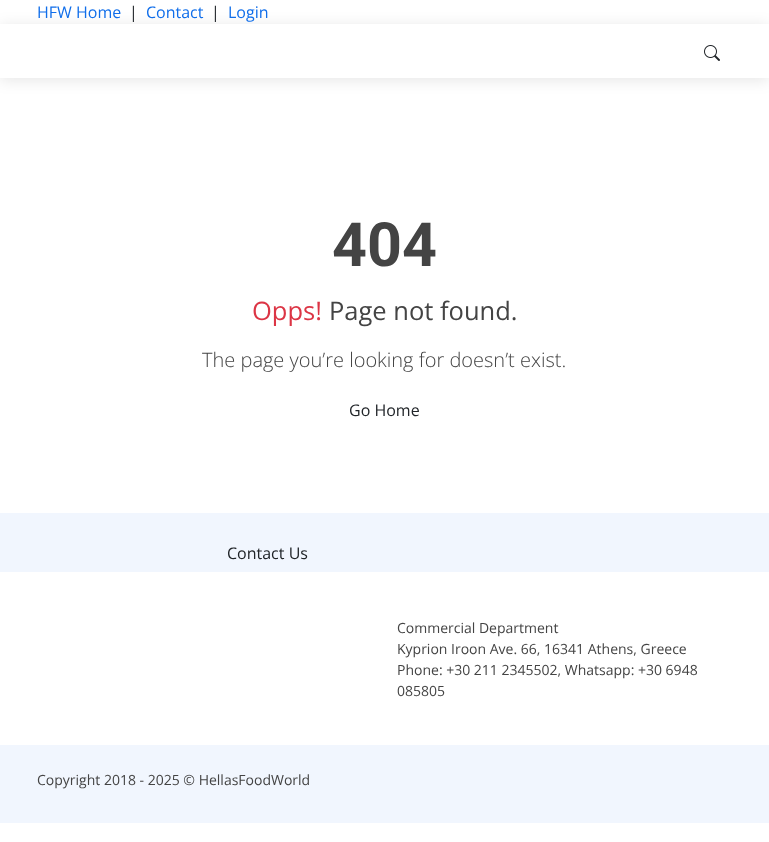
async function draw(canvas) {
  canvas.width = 769;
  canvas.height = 842;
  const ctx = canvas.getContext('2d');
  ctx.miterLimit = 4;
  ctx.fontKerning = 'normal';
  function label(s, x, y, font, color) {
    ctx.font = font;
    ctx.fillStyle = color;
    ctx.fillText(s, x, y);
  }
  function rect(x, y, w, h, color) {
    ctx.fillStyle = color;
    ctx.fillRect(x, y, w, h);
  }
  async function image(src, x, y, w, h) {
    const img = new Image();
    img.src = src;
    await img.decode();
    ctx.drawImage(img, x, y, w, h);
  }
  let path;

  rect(0, 0, 769, 842, '#fff');
  ctx.save();
  path = new Path2D('M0 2H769V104H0ZM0 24H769V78H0Z');
  ctx.clip(path, 'evenodd');
  ctx.fillStyle = '#0000001a';
  ctx.filter = 'blur(7.5px)';
  ctx.beginPath();
  ctx.rect(0, 26, 769, 54);
  ctx.fill();
  ctx.filter = 'none';
  ctx.restore();
  await image('assets/img1.png', 704, 45, 16, 16);
  label('HFW Home', 37, 18, '16px Open Sans', '#106eea');
  label('|', 129, 18, '16px Open Sans', '#212529');
  label('Contact', 146, 18, '16px Open Sans', '#106eea');
  label('|', 211, 18, '16px Open Sans', '#212529');
  label('Login', 228, 18, '16px Open Sans', '#106eea');
  label('404', 332, 266, 'bold 61px Roboto', '#444');
  label('Opps!', 252, 320, '25.5px Open Sans', '#dc3545');
  label('Page not found.', 329, 320, '25.5px Open Sans', '#444');
  label('The page you’re looking for doesn’t exist.', 202, 367, '300 20px Open Sans', '#444');
  label('Go Home', 349, 416, '16px Open Sans', '#212529');
  rect(0, 513, 769, 310, '#f1f6fe');
  label('Contact Us', 227, 559, '16px Open Sans', '#212529');
  rect(0, 572, 769, 173, '#fff');
  label('Commercial Department', 397, 633, '14px Open Sans', '#444');
  label('Kyprion Ιroon Ave. 66, 16341 Athens, Greece', 397, 654, '14px Open Sans', '#444');
  label('Phone: +30 211 2345502, Whatsapp: +30 6948', 397, 675, '14px Open Sans', '#444');
  label('085805', 397, 696, '14px Open Sans', '#444');
  label('Copyright 2018 - 2025 © HellasFoodWorld', 37, 785, '14px Open Sans', '#444');
}

draw(document.querySelector('canvas'));
